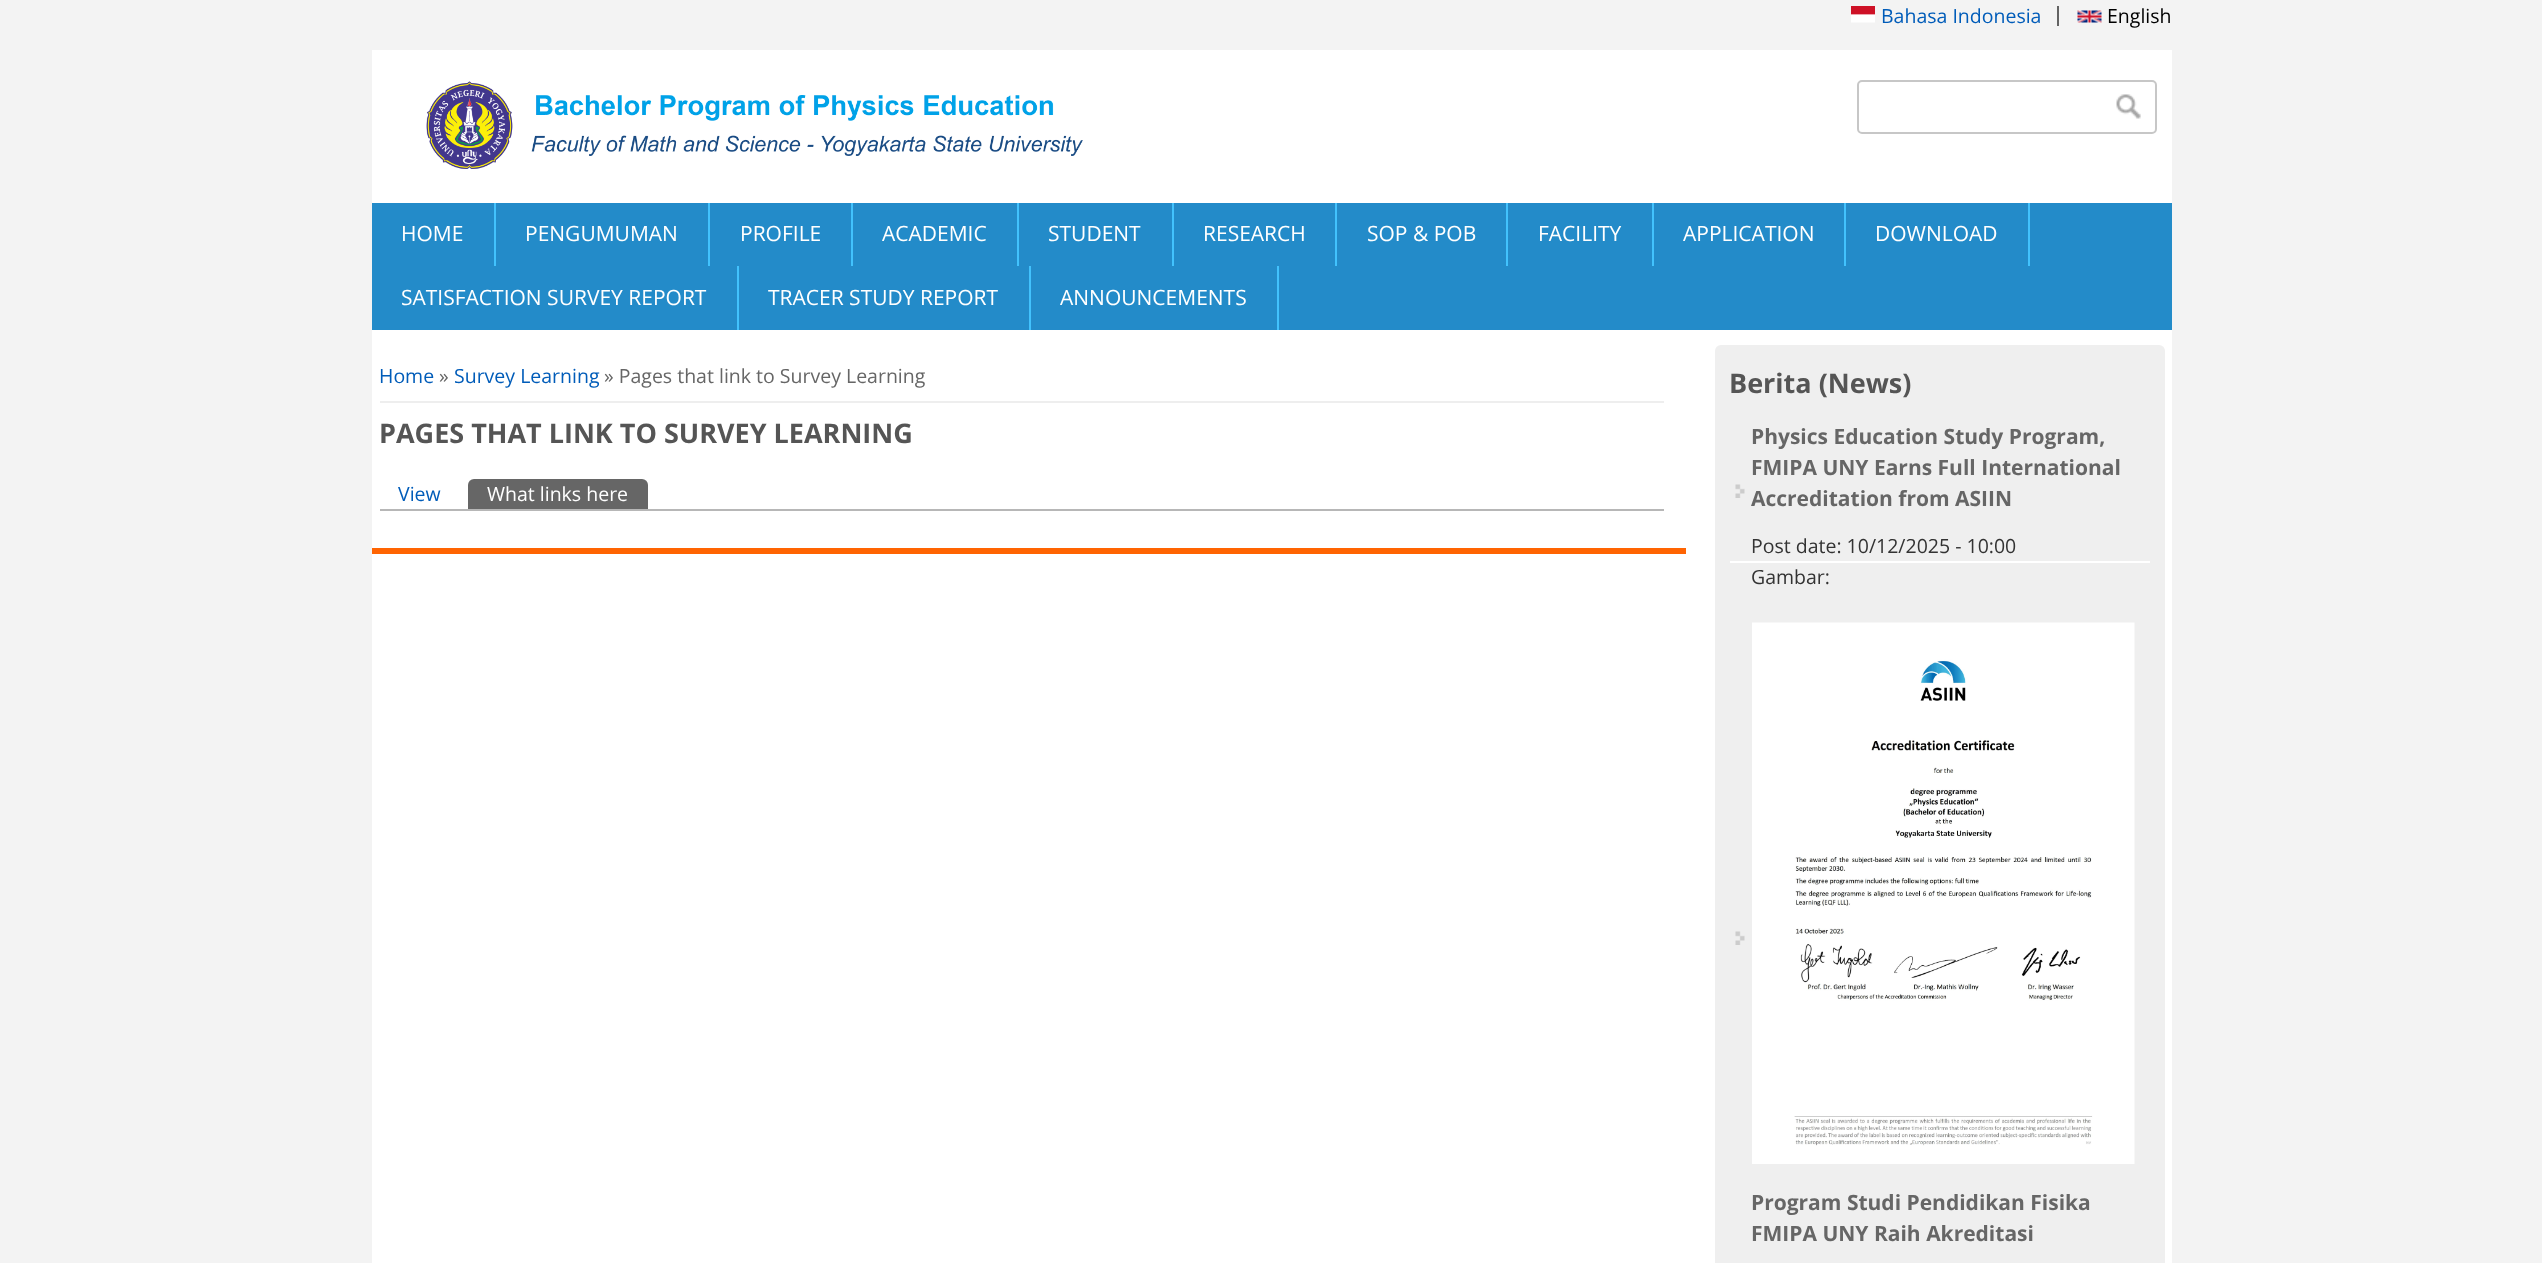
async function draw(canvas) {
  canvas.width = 2542;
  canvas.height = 1263;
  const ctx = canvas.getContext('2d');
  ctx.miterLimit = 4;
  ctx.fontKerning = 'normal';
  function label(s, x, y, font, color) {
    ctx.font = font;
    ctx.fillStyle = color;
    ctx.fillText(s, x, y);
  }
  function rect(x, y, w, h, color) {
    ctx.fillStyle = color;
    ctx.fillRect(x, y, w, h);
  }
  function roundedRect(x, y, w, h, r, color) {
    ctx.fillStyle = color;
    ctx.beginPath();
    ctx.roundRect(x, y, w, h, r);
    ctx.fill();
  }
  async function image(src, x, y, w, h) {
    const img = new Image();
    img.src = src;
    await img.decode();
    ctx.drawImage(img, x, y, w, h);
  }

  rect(0, 0, 2542, 1263, '#f3f3f3');
  rect(372, 50, 1800, 1213, '#fff');
  rect(2057, 6, 2, 20, '#636363');
  await image('assets/img1.png', 1851, 6, 24, 17);
  label('Bahasa Indonesia', 1881, 23, '19.5px Open Sans', '#005cb9');
  await image('assets/img2.png', 2077, 10, 25, 13);
  label('English', 2107, 23, '19.5px Open Sans', '#000');
  await image('assets/img3.png', 426, 81, 657, 88);
  ctx.beginPath();
  ctx.roundRect(1858, 81, 298, 52, 4);
  ctx.strokeStyle = '#c7c7c7';
  ctx.lineWidth = 2;
  ctx.stroke();
  await image('assets/img4.png', 2116, 94, 25, 25);
  rect(372, 203, 1800, 127, '#238bc9');
  rect(494, 203, 2, 63, '#42c2fd');
  label('HOME', 401, 241, '21px Open Sans', '#fff');
  rect(708, 203, 2, 63, '#42c2fd');
  label('PENGUMUMAN', 525, 241, '21px Open Sans', '#fff');
  rect(851, 203, 2, 63, '#42c2fd');
  label('PROFILE', 740, 241, '21px Open Sans', '#fff');
  rect(1017, 203, 2, 63, '#42c2fd');
  label('ACADEMIC', 882, 241, '21px Open Sans', '#fff');
  rect(1172, 203, 2, 63, '#42c2fd');
  label('STUDENT', 1048, 241, '21px Open Sans', '#fff');
  rect(1335, 203, 2, 63, '#42c2fd');
  label('RESEARCH', 1203, 241, '21px Open Sans', '#fff');
  rect(1506, 203, 2, 63, '#42c2fd');
  label('SOP & POB', 1367, 241, '21px Open Sans', '#fff');
  rect(1652, 203, 2, 63, '#42c2fd');
  label('FACILITY', 1538, 241, '21px Open Sans', '#fff');
  rect(1844, 203, 2, 63, '#42c2fd');
  label('APPLICATION', 1683, 241, '21px Open Sans', '#fff');
  rect(2028, 203, 2, 63, '#42c2fd');
  label('DOWNLOAD', 1875, 241, '21px Open Sans', '#fff');
  rect(737, 266, 2, 64, '#42c2fd');
  label('SATISFACTION SURVEY REPORT', 401, 305, '21px Open Sans', '#fff');
  rect(1029, 266, 2, 64, '#42c2fd');
  label('TRACER STUDY REPORT', 768, 305, '21px Open Sans', '#fff');
  rect(1277, 266, 2, 64, '#42c2fd');
  label('ANNOUNCEMENTS', 1060, 305, '21px Open Sans', '#fff');
  rect(372, 548, 1314, 6, '#ff6402');
  rect(380, 401, 1284, 2, '#eee');
  label('Home', 379, 383, '19.5px Open Sans', '#005cb9');
  label('»', 439, 383, '19.5px Open Sans', '#666');
  label('Survey Learning', 454, 383, '19.5px Open Sans', '#005cb9');
  label('» Pages that link to Survey Learning', 604, 383, '19.5px Open Sans', '#666');
  label('PAGES THAT LINK TO SURVEY LEARNING', 379, 443, 'bold 27px Open Sans', '#555');
  rect(380, 509, 1284, 2, '#b7b7b7');
  label('View', 398, 501, '19.5px Open Sans', '#005cb9');
  ctx.fillStyle = '#666';
  ctx.beginPath();
  ctx.roundRect(468, 479, 180, 30, [6, 6, 0, 0]);
  ctx.fill();
  label('What links here', 487, 501, '19.5px Open Sans', '#fff');
  roundedRect(1715, 345, 450, 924, 6, '#efefef');
  label('Berita (News)', 1729, 393, 'bold 27px Open Sans', '#555');
  await image('assets/img5.png', 1735, 484, 10, 14);
  rect(1730, 561, 420, 2, '#fff');
  label('Physics Education Study Program,', 1751, 444, 'bold 21px Open Sans', '#666');
  label('FMIPA UNY Earns Full International', 1751, 475, 'bold 21px Open Sans', '#666');
  label('Accreditation from ASIIN', 1751, 506, 'bold 21px Open Sans', '#666');
  label('Post date: 10/12/2025 - 10:00', 1751, 553, '19.5px Open Sans', '#333');
  label('Gambar:', 1751, 584, '19.5px Open Sans', '#333');
  await image('assets/img6.png', 1752, 622, 383, 542);
  await image('assets/img5.png', 1735, 931, 10, 14);
  label('Program Studi Pendidikan Fisika', 1751, 1210, 'bold 21px Open Sans', '#666');
  label('FMIPA UNY Raih Akreditasi', 1751, 1241, 'bold 21px Open Sans', '#666');
}

draw(document.querySelector('canvas'));
